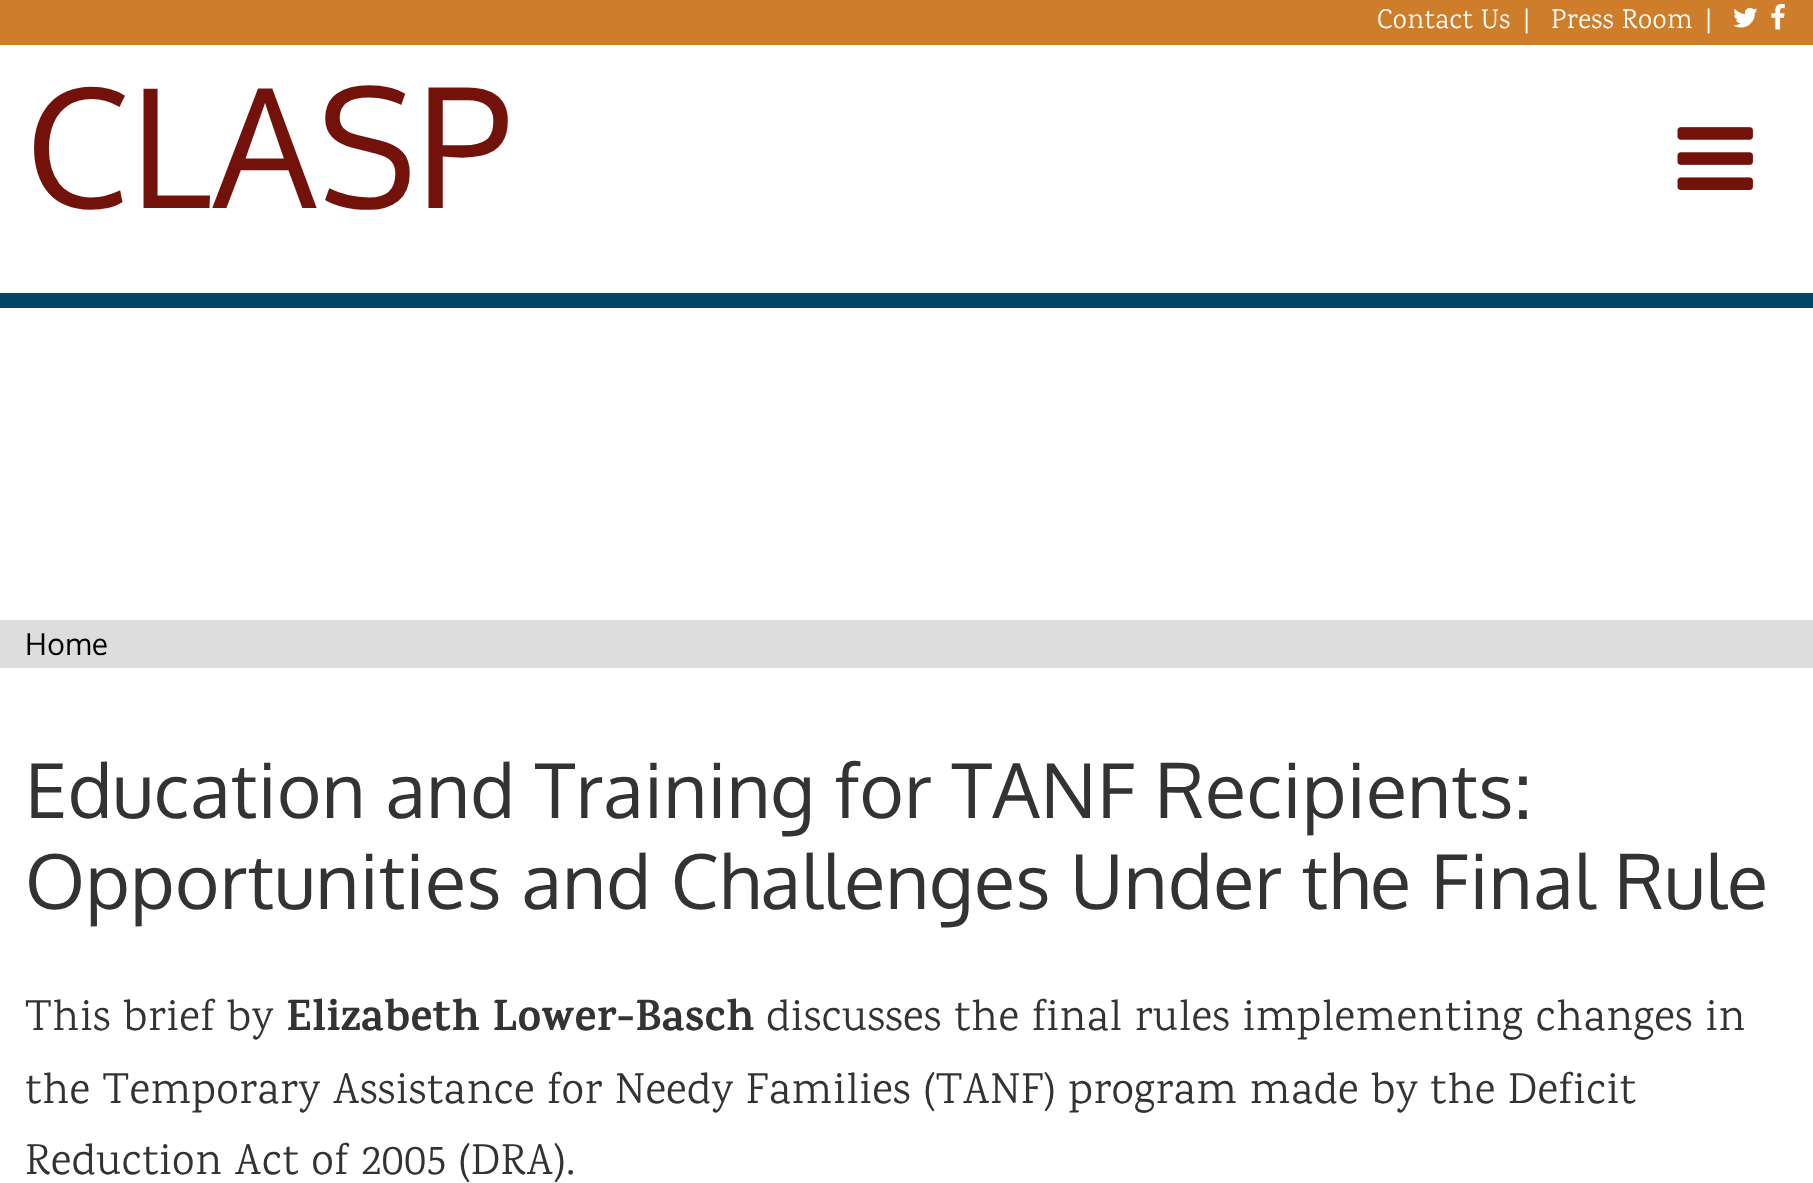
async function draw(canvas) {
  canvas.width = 1813;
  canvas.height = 1183;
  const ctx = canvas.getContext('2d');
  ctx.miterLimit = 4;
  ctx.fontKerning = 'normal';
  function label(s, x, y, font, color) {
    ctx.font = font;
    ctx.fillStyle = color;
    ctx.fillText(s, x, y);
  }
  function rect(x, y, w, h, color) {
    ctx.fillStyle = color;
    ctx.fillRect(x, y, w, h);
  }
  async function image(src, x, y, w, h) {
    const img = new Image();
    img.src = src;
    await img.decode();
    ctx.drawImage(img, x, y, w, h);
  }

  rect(0, 0, 1813, 1183, '#fff');
  rect(0, 0, 1813, 45, '#ce7e2b');
  ctx.letterSpacing = '0.45px';
  label('Contact Us', 1377, 28, '27.5px Karma', '#fff');
  label('|', 1523, 28, '27.5px Karma', '#fff');
  label('Press Room', 1551, 28, '27.5px Karma', '#fff');
  label('|', 1705, 28, '27.5px Karma', '#fff');
  await image('assets/img1.png', 1733, 7, 25, 21);
  await image('assets/img2.png', 1771, 3, 14, 27);
  label('CLASP', 25, 208, '165px Oxygen', '#72120b');
  await image('assets/img3.png', 1677, 127, 76, 63);
  rect(0, 293, 1813, 15, '#014868');
  rect(0, 620, 1813, 48, '#ddd');
  label('Home', 25, 655, '30px Oxygen', '#000');
  label('Education and Training for TANF Recipients:', 25, 818, '75.6px Oxygen', '#333');
  label('Opportunities and Challenges Under the Final Rule', 25, 909, '75.6px Oxygen', '#333');
  label('This brief by', 25, 1030, '44px Karma', '#333');
  label('Elizabeth Lower-Basch', 286, 1030, 'bold 44px Karma', '#333');
  label('discusses the final rules implementing changes in', 766, 1030, '44px Karma', '#333');
  label('the Temporary Assistance for Needy Families (TANF) program made by the Deficit', 25, 1103, '44px Karma', '#333');
  label('Reduction Act of 2005 (DRA).', 25, 1174, '44px Karma', '#333');
}

draw(document.querySelector('canvas'));
